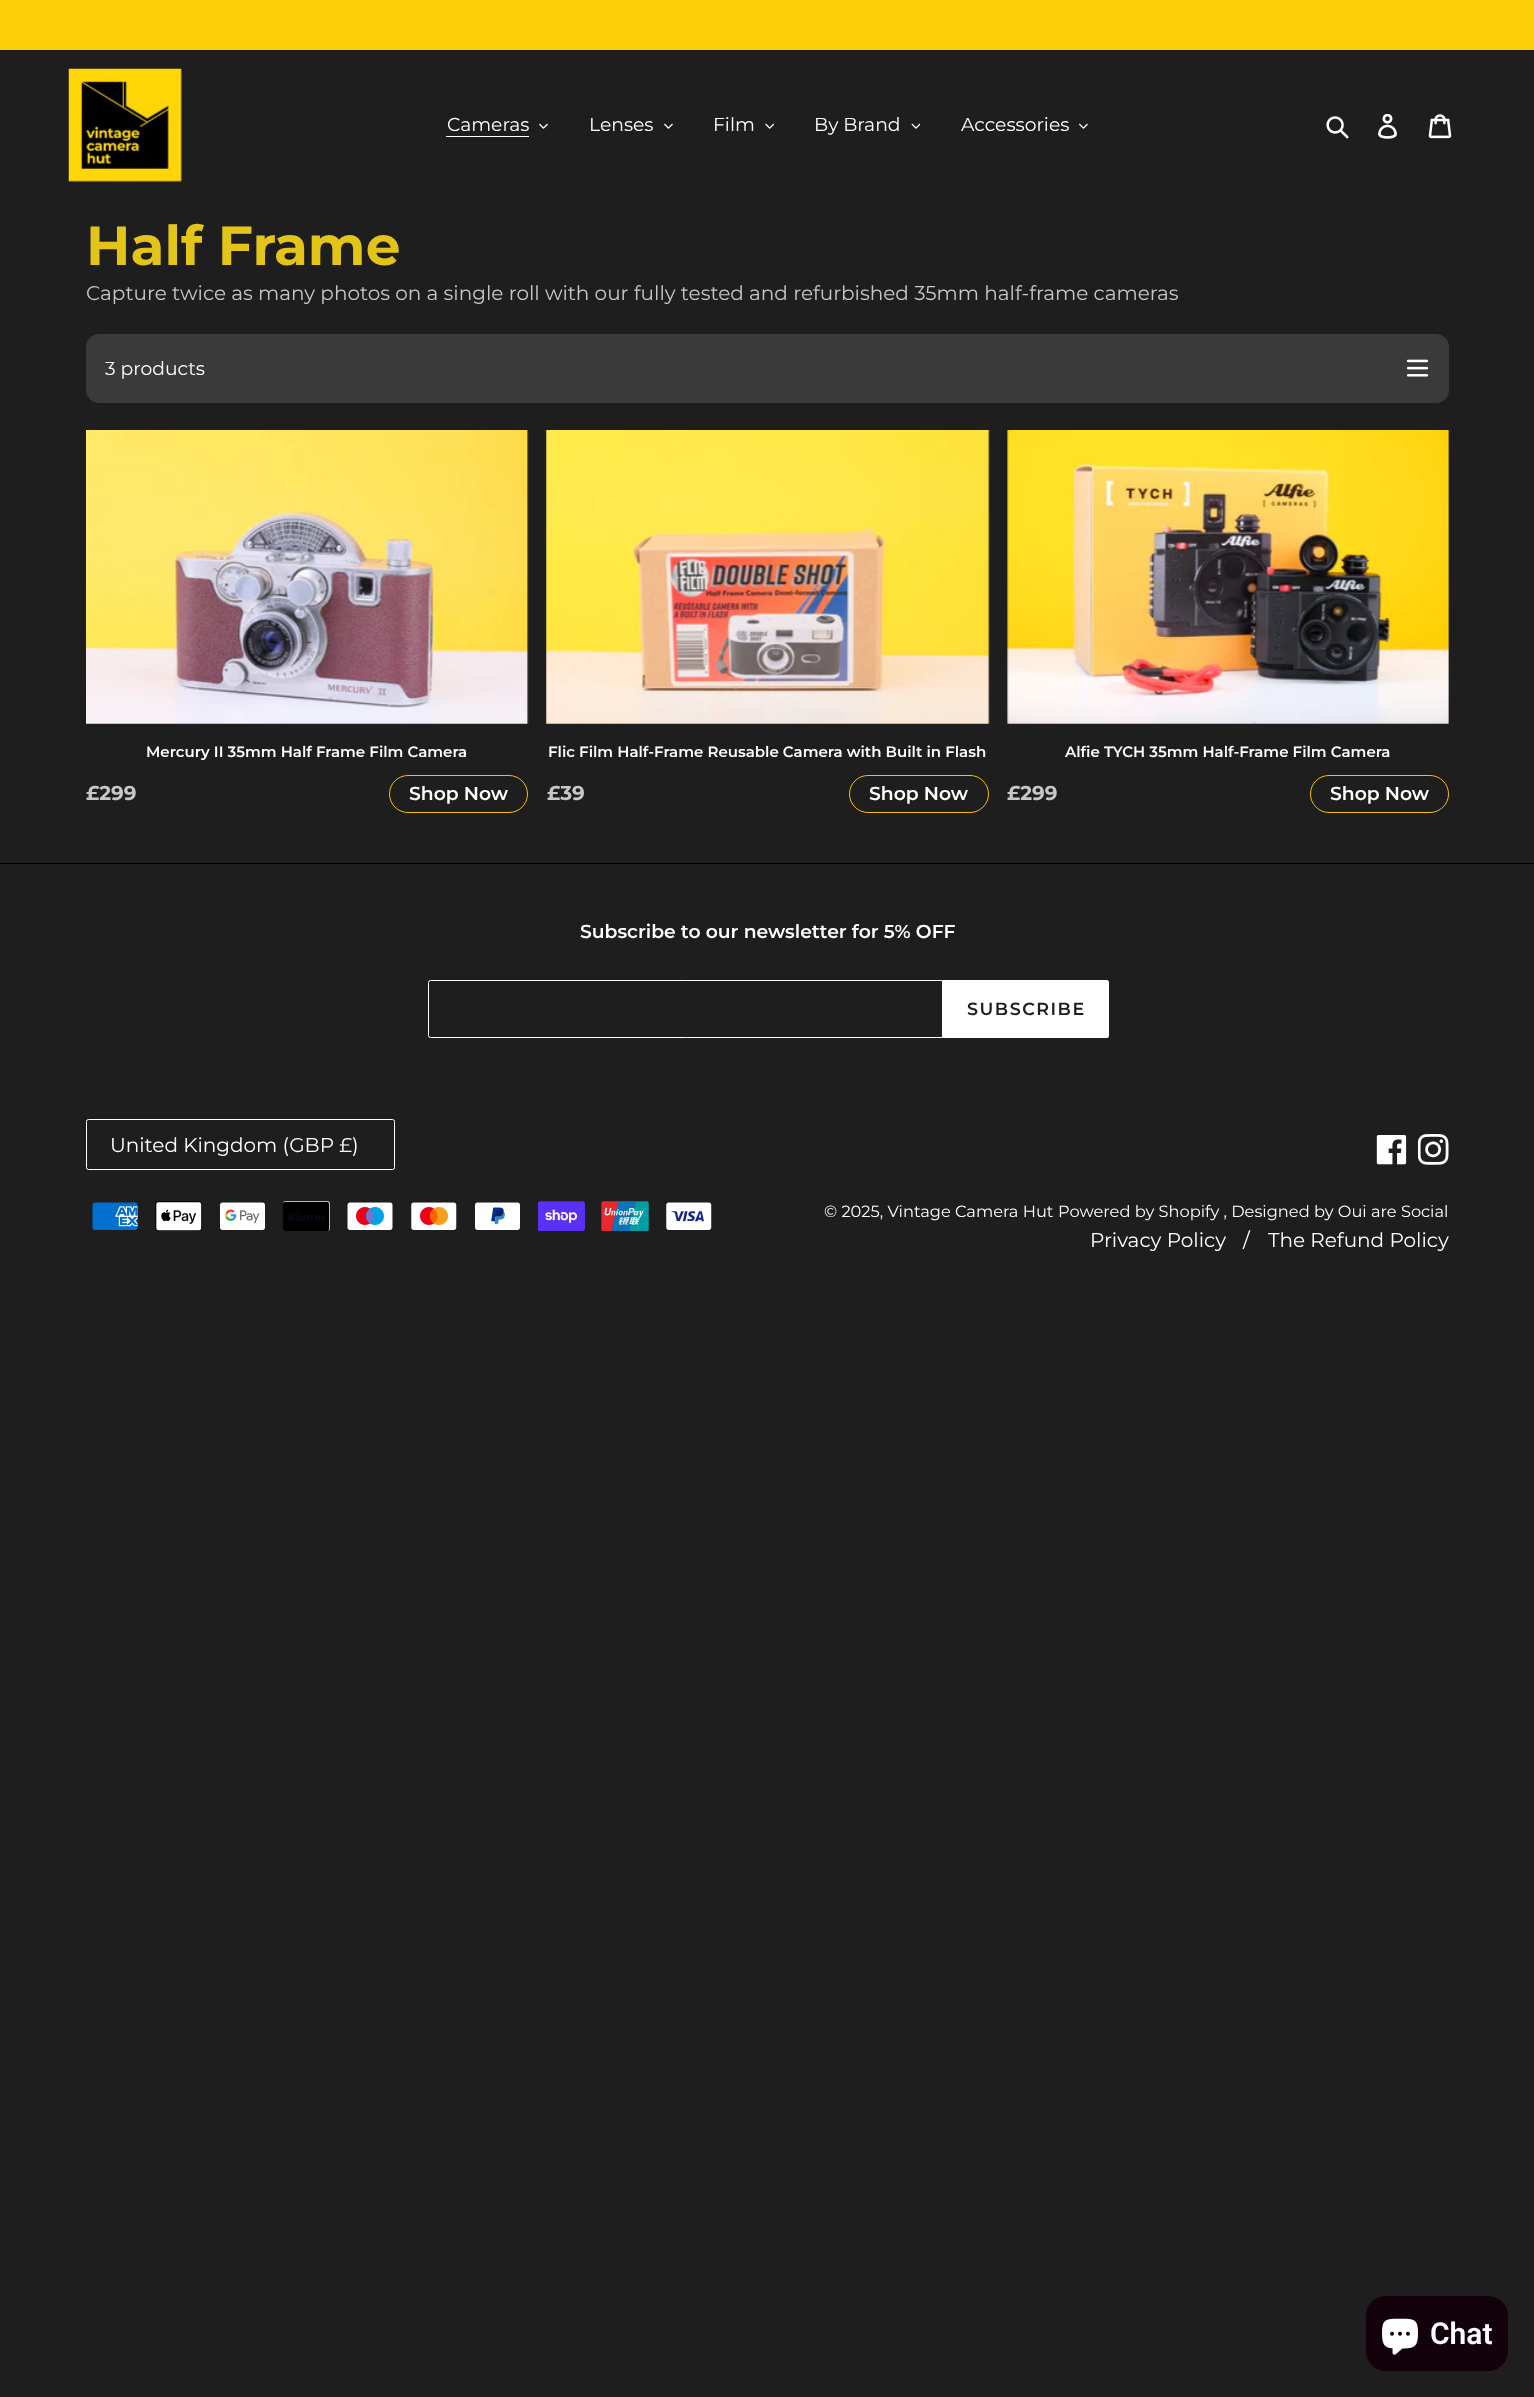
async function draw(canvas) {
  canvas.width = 1534;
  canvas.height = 2397;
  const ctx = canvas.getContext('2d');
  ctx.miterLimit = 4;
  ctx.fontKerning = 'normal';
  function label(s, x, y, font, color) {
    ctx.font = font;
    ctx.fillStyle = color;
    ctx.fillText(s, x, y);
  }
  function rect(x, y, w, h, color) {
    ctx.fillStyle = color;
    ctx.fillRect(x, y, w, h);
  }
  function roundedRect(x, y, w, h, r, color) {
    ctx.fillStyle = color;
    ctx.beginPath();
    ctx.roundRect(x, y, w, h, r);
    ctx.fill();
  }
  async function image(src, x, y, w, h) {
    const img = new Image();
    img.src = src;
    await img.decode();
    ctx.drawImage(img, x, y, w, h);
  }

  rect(0, 0, 1534, 2397, '#1e1e1e');
  rect(0, 0, 1534, 50, '#fdce0a');
  await image('assets/img1.png', 68, 68, 114, 114);
  label('Cameras', 447, 131, '18.75px Montserrat', '#fff');
  rect(446, 136, 83, 1, '#fff');
  await image('assets/img2.png', 539, 123, 9, 6);
  label('Lenses', 589, 131, '18.75px Montserrat', '#fff');
  await image('assets/img2.png', 664, 123, 9, 6);
  label('Film', 713, 131, '18.75px Montserrat', '#fff');
  await image('assets/img3.png', 765, 123, 9, 6);
  label('By Brand', 814, 131, '18.75px Montserrat', '#fff');
  await image('assets/img4.png', 911, 123, 9, 6);
  label('Accessories', 961, 131, '18.75px Montserrat', '#fff');
  await image('assets/img2.png', 1079, 123, 9, 6);
  await image('assets/img5.png', 1326, 116, 23, 23);
  await image('assets/img6.png', 1378, 114, 19, 25);
  await image('assets/img7.png', 1428, 114, 24, 25);
  label('Half Frame', 86, 265, 'bold 55px Montserrat', '#e3c51a');
  label('Capture twice as many photos on a single roll with our fully tested and refurbished 35mm half-frame cameras', 86, 300, '20px Montserrat', '#c7c7c7');
  roundedRect(86, 334, 1363, 69, 13, '#181818');
  roundedRect(86, 334, 1363, 69, 13, '#ffffff26');
  label('3 products', 105, 375, '18.75px Montserrat', '#fff');
  await image('assets/img8.png', 1406, 359, 23, 18);
  await image('assets/img9.png', 86, 430, 443, 294);
  label('Mercury II 35mm Half Frame Film Camera', 146, 757, '600 15px Montserrat', '#fff');
  label('£299', 86, 800, 'bold 20px Montserrat', '#c7c7c7');
  ctx.beginPath();
  ctx.roundRect(389.5, 775.5, 138, 37, 18.5);
  ctx.strokeStyle = '#fabc05';
  ctx.stroke();
  label('Shop Now', 409, 800, '600 18.75px Montserrat', '#fff');
  await image('assets/img10.png', 546, 430, 444, 294);
  label('Flic Film Half-Frame Reusable Camera with Built in Flash', 548, 757, '600 15px Montserrat', '#fff');
  label('£39', 547, 800, 'bold 20px Montserrat', '#c7c7c7');
  ctx.beginPath();
  ctx.roundRect(849.5, 775.5, 139, 37, 18.5);
  ctx.stroke();
  label('Shop Now', 869, 800, '600 18.75px Montserrat', '#fff');
  await image('assets/img11.png', 1007, 430, 442, 294);
  label('Alfie TYCH 35mm Half-Frame Film Camera', 1065, 757, '600 15px Montserrat', '#fff');
  label('£299', 1007, 800, 'bold 20px Montserrat', '#c7c7c7');
  ctx.beginPath();
  ctx.roundRect(1310.5, 775.5, 138, 37, 18.5);
  ctx.stroke();
  label('Shop Now', 1330, 800, '600 18.75px Montserrat', '#fff');
  rect(0, 863, 1534, 1, '#000');
  label('Subscribe to our newsletter for 5% OFF', 580, 938, '600 18.75px Montserrat', '#fff');
  ctx.beginPath();
  ctx.roundRect(428.5, 980.5, 514, 57, [2, 0, 0, 2]);
  ctx.strokeStyle = '#fff';
  ctx.stroke();
  ctx.beginPath();
  ctx.roundRect(943, 980, 166, 58, [0, 2.5, 2.5, 0]);
  ctx.fill();
  ctx.letterSpacing = '1.5px';
  label('SUBSCRIBE', 967, 1015, '600 17.5px Montserrat', '#1e1e1e');
  ctx.beginPath();
  ctx.roundRect(86.5, 1119.5, 308, 50, 2);
  ctx.stroke();
  ctx.letterSpacing = '0px';
  label('United Kingdom (GBP £)', 110, 1152, '20px Montserrat', '#fff');
  await image('assets/img12.png', 1376, 1135, 31, 30);
  await image('assets/img13.png', 1418, 1134, 31, 31);
  await image('assets/img14.png', 92, 1202, 46, 28);
  await image('assets/img15.png', 155, 1201, 48, 30);
  await image('assets/img16.png', 220, 1202, 45, 28);
  await image('assets/img17.png', 283, 1201, 47, 30);
  await image('assets/img18.png', 347, 1202, 46, 28);
  await image('assets/img19.png', 411, 1202, 46, 28);
  await image('assets/img20.png', 475, 1202, 45, 28);
  await image('assets/img21.png', 538, 1201, 47, 30);
  await image('assets/img22.png', 601, 1201, 48, 30);
  await image('assets/img23.png', 666, 1202, 46, 28);
  label('© 2025, Vintage Camera Hut', 824, 1217, '16.25px Montserrat', '#fff');
  label('Powered by Shopify , Designed by Oui are Social', 1058, 1217, '16.25px Montserrat', '#fff');
  label('Privacy Policy', 1090, 1247, '20px Montserrat', '#fff');
  label('/', 1243, 1247, '20px Montserrat', '#fff');
  label('The Refund Policy', 1268, 1247, '20px Montserrat', '#fff');
  roundedRect(1366, 2296, 142, 75, 20, '#13010c');
  await image('assets/img24.png', 1382, 2318, 36, 37);
  label('Chat', 1430, 2344, '600 30px Roboto', '#fff');
}

draw(document.querySelector('canvas'));
